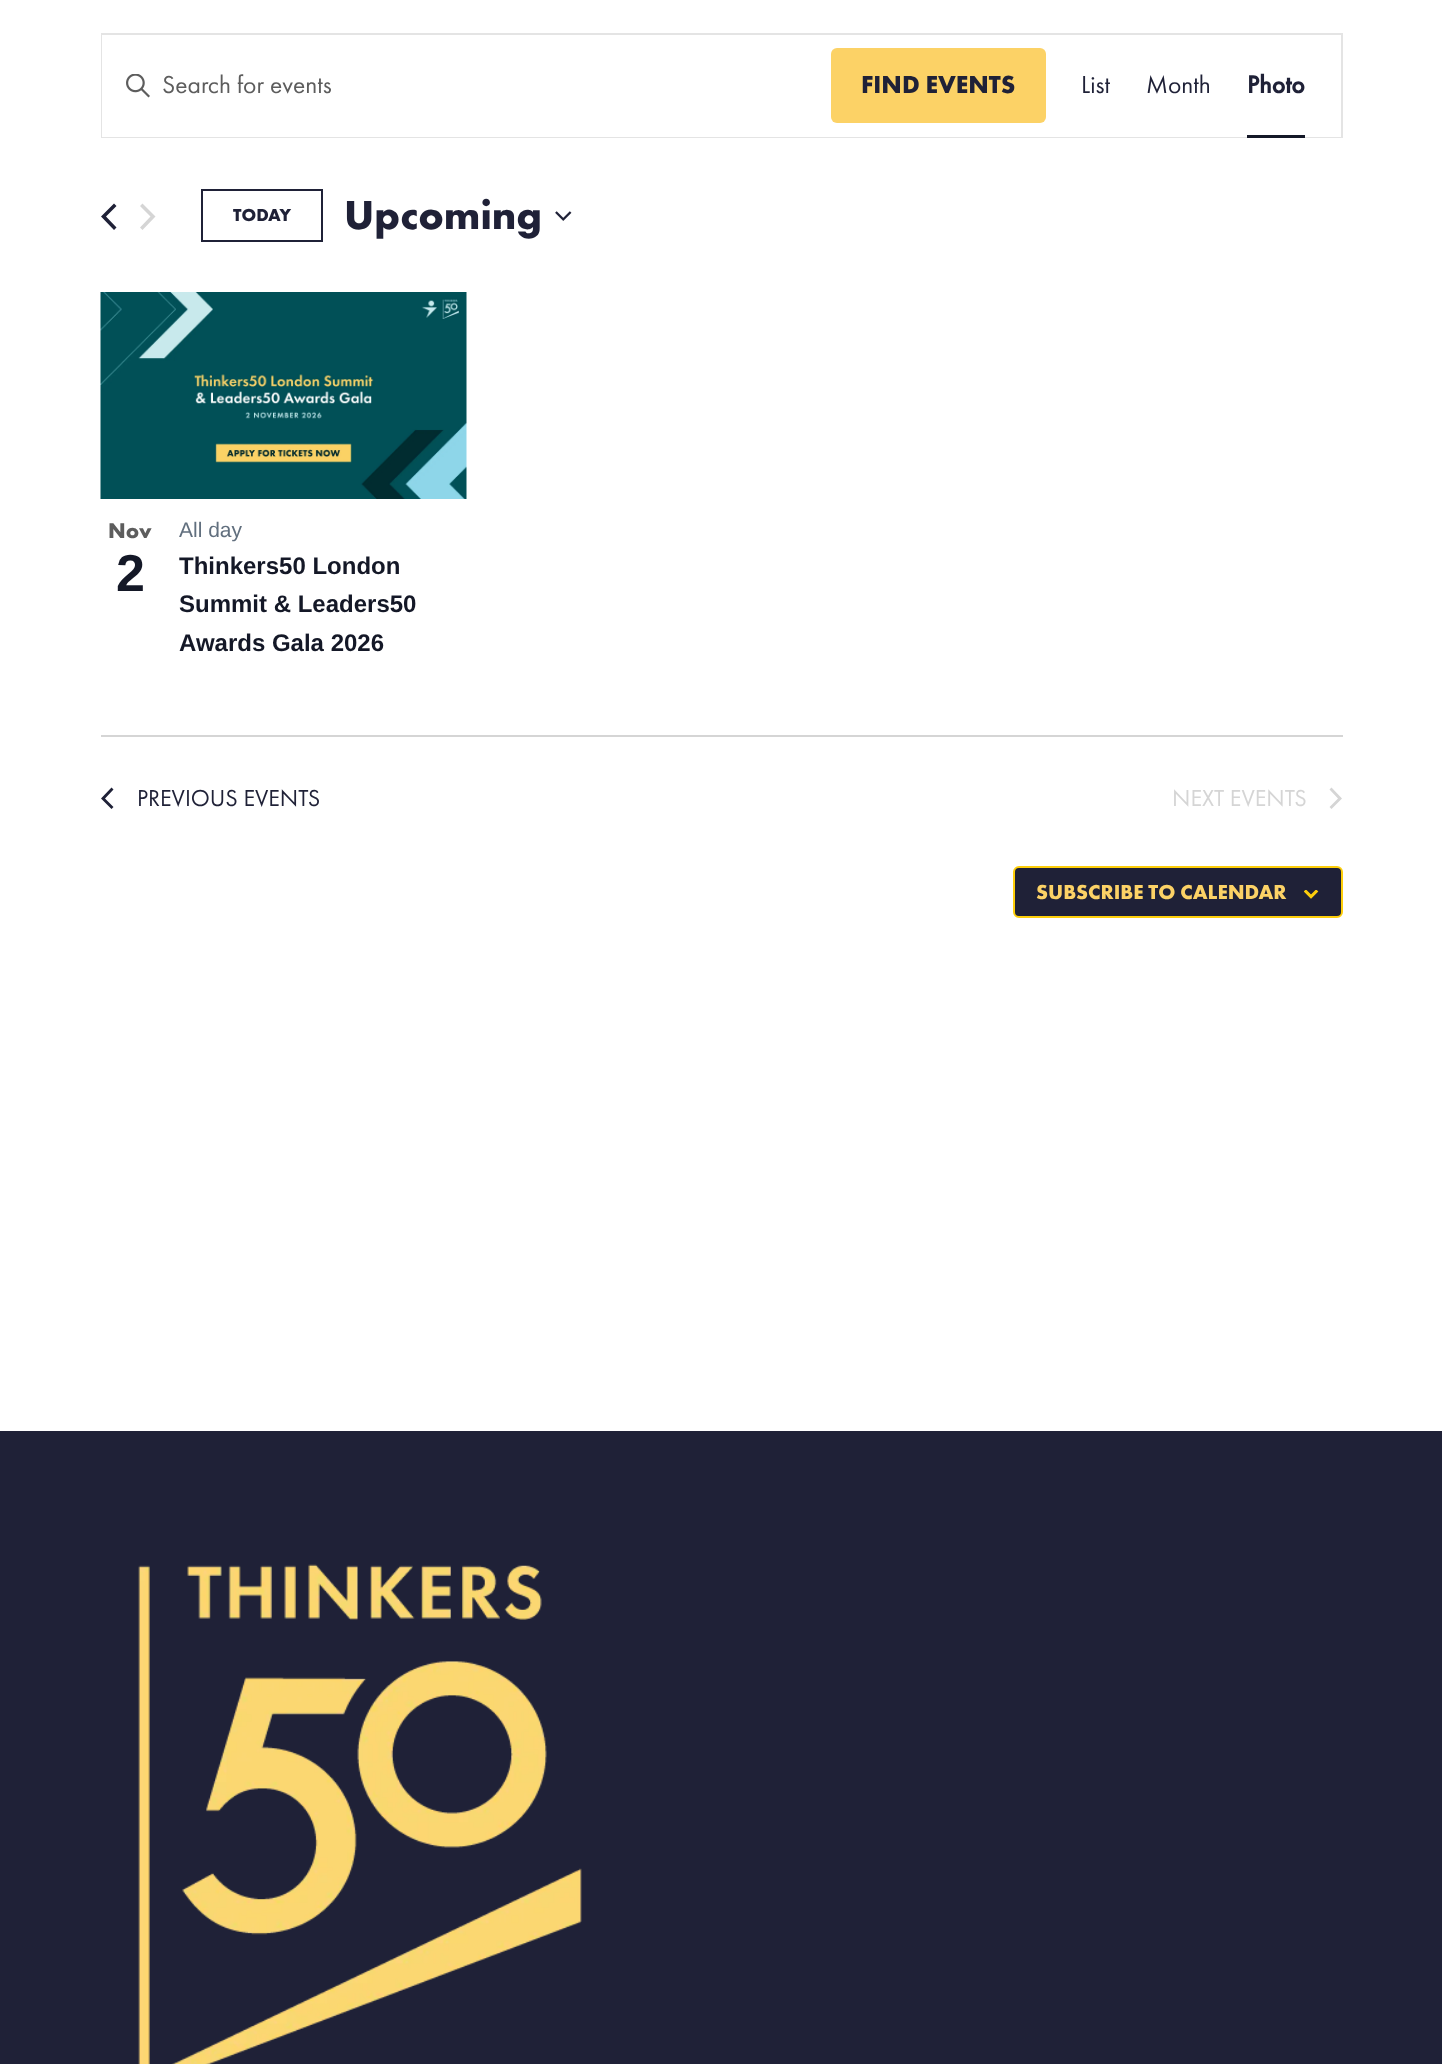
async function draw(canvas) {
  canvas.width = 1442;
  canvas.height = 2064;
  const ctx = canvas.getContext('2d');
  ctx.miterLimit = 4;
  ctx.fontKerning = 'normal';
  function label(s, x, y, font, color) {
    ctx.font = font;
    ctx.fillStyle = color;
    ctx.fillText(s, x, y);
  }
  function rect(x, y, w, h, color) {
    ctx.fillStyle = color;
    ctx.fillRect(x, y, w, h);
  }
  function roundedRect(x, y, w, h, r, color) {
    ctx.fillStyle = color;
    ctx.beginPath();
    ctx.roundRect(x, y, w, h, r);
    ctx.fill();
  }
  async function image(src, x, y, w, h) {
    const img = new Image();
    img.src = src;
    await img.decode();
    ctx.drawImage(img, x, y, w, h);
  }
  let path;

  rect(0, 0, 1442, 2064, '#fff');
  ctx.strokeStyle = '#e4e4e4';
  ctx.lineWidth = 2;
  ctx.strokeRect(102, 34, 1240, 103);
  rect(102, 35, 944, 102, '#fff');
  await image('assets/img1.png', 126, 74, 24, 24);
  label('Search for events', 162, 93, '25.5px Futura PT', '#5d5d5d');
  roundedRect(831, 48, 215, 75, 6, '#fcd266');
  label('FIND EVENTS', 861, 93, 'bold 25.5px Futura PT', '#1f2137');
  rect(1046, 136, 295, 1, '#fff');
  label('List', 1081, 93, '25.5px Futura PT', '#1f2137');
  label('Month', 1146, 93, '25.5px Futura PT', '#1f2137');
  label('Photo', 1247, 93, 'bold 25.5px "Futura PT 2"', '#1f2137');
  rect(1247, 135, 58, 3, '#141827');
  ctx.fillStyle = '#1f2137';
  path = new Path2D('M116.5 227.5L114 230L101 216.5L114 203.5L116.5 206L106 216.5Z');
  ctx.fill(path);
  ctx.fillStyle = '#d5d5d5';
  path = new Path2D('M140 206L142.5 203.5L155.5 216.5L142.5 230L140 227.5L150.5 216.5Z');
  ctx.fill(path);
  ctx.strokeStyle = '#1f2137';
  ctx.strokeRect(202, 190, 120, 51);
  label('TODAY', 233, 221, 'bold 18px Futura PT', '#1f2137');
  label('Upcoming', 344, 229, 'bold 42px Futura PT', '#1f2137');
  await image('assets/img2.png', 555, 211, 17, 10);
  await image('assets/img3.png', 100, 292, 367, 207);
  label('Nov', 108, 538, 'bold 22px Futura PT', '#5d5d5d');
  label('2', 116, 591, 'bold 52px Liberation Sans', '#141827');
  label('All day', 179, 537, '21px Liberation Sans', '#616f7e');
  label('Thinkers50 London', 179, 574, 'bold 24px Liberation Sans', '#141827');
  label('Summit & Leaders50', 179, 612, 'bold 24px Liberation Sans', '#141827');
  label('Awards Gala 2026', 179, 651, 'bold 24px Liberation Sans', '#141827');
  rect(101, 735, 1242, 2, '#d5d5d5');
  ctx.fillStyle = '#1f2137';
  path = new Path2D('M113.5 807L111.5 809L101 798.5L111.5 787.5L113.5 789.5L105 798.5Z');
  ctx.fill(path);
  label('PREVIOUS EVENTS', 137, 806, '24px Futura PT', '#1f2137');
  label('NEXT EVENTS', 1172, 806, '24px Futura PT', '#d5d5d5');
  path = new Path2D('M1329.5 789.5L1331.5 787.5L1342 798.5L1331.5 809L1329.5 807L1338 798.5Z');
  ctx.fill(path);
  ctx.fillStyle = '#1f2137';
  ctx.beginPath();
  ctx.roundRect(1014, 867, 328, 50, 5);
  ctx.fill();
  ctx.strokeStyle = '#fdce0a';
  ctx.stroke();
  label('SUBSCRIBE TO CALENDAR', 1036, 899, 'bold 21px Futura PT', '#fcd266');
  await image('assets/img4.png', 1304, 890, 15, 9);
  rect(0, 1431, 1442, 633, '#1f2137');
  await image('assets/img5.png', 138, 1564, 444, 500);
}

draw(document.querySelector('canvas'));
